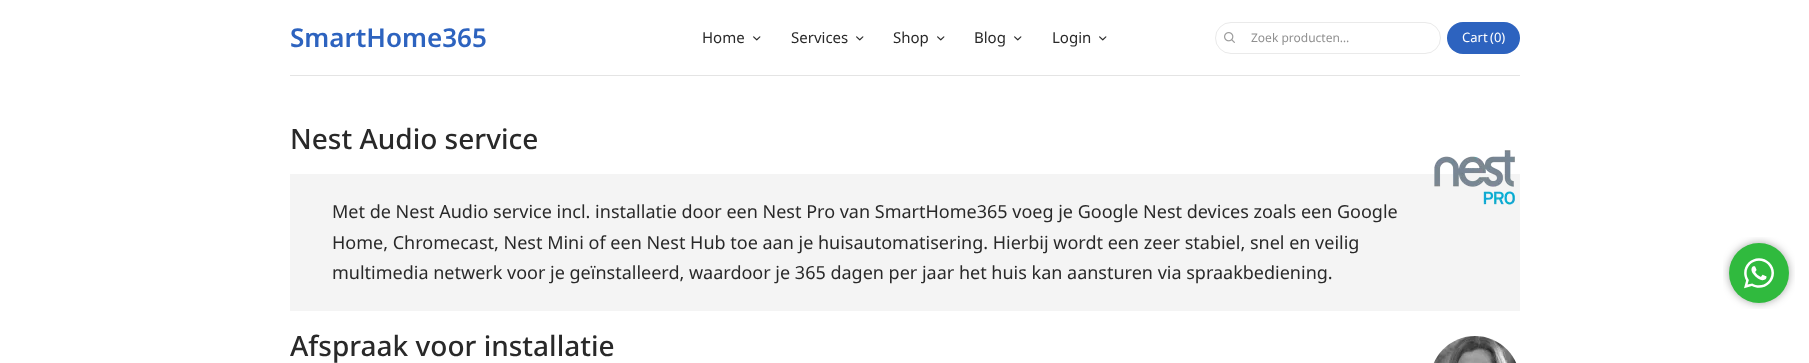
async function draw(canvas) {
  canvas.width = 1809;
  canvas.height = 363;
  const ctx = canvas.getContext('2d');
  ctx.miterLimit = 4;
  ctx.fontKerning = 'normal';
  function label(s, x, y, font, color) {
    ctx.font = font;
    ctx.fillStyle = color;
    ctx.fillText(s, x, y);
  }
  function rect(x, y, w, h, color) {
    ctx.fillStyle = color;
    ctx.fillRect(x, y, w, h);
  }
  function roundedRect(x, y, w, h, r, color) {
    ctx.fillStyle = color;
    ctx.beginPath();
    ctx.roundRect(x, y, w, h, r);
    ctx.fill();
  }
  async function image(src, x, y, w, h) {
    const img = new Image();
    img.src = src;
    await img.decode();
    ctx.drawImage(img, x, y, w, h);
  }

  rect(0, 0, 1809, 363, '#fff');
  label('SmartHome365', 290, 47, '600 26px Noto Sans', '#2d63bf');
  label('Home', 702, 43, '15px Noto Sans', '#292929');
  await image('assets/img1.png', 753, 36, 8, 5);
  label('Services', 791, 43, '15px Noto Sans', '#292929');
  await image('assets/img1.png', 856, 36, 8, 5);
  label('Shop', 893, 43, '15px Noto Sans', '#292929');
  await image('assets/img1.png', 937, 36, 8, 5);
  label('Blog', 974, 43, '15px Noto Sans', '#292929');
  await image('assets/img1.png', 1014, 36, 8, 5);
  label('Login', 1052, 43, '15px Noto Sans', '#292929');
  await image('assets/img1.png', 1099, 36, 8, 5);
  ctx.beginPath();
  ctx.roundRect(1215.5, 22.5, 225, 31, 15.5);
  ctx.strokeStyle = '#eaeaea';
  ctx.stroke();
  await image('assets/img2.png', 1224, 32, 11, 11);
  label('Zoek producten…', 1251, 42, '12px Noto Sans', '#909090');
  roundedRect(1447, 22, 73, 32, 16, '#2d63bf');
  label('Cart', 1462, 42, '13px Noto Sans', '#fff');
  label('(0)', 1490, 42, '13px Noto Sans', '#fff');
  rect(290, 75, 1230, 1, '#e4e4e4');
  label('Nest Audio service', 290, 149, '500 28px Noto Sans', '#292929');
  rect(290, 174, 1230, 137, '#f4f4f4');
  await image('assets/img3.png', 1434, 150, 81, 55);
  label('Met de Nest Audio service incl. installatie door een Nest Pro van SmartHome365 voeg je Google Nest devices zoals een Google', 332, 218, '18px Noto Sans', '#292929');
  label('Home, Chromecast, Nest Mini of een Nest Hub toe aan je huisautomatisering. Hierbij wordt een zeer stabiel, snel en veilig', 332, 249, '18px Noto Sans', '#292929');
  label('multimedia netwerk voor je geïnstalleerd, waardoor je 365 dagen per jaar het huis kan aansturen via spraakbediening.', 332, 279, '18px Noto Sans', '#292929');
  label('Afspraak voor installatie', 290, 356, '500 28px Noto Sans', '#292929');
  await image('assets/img4.png', 1433, 336, 84, 27);
  await image('assets/img5.png', 1723, 237, 72, 72);
}

draw(document.querySelector('canvas'));
